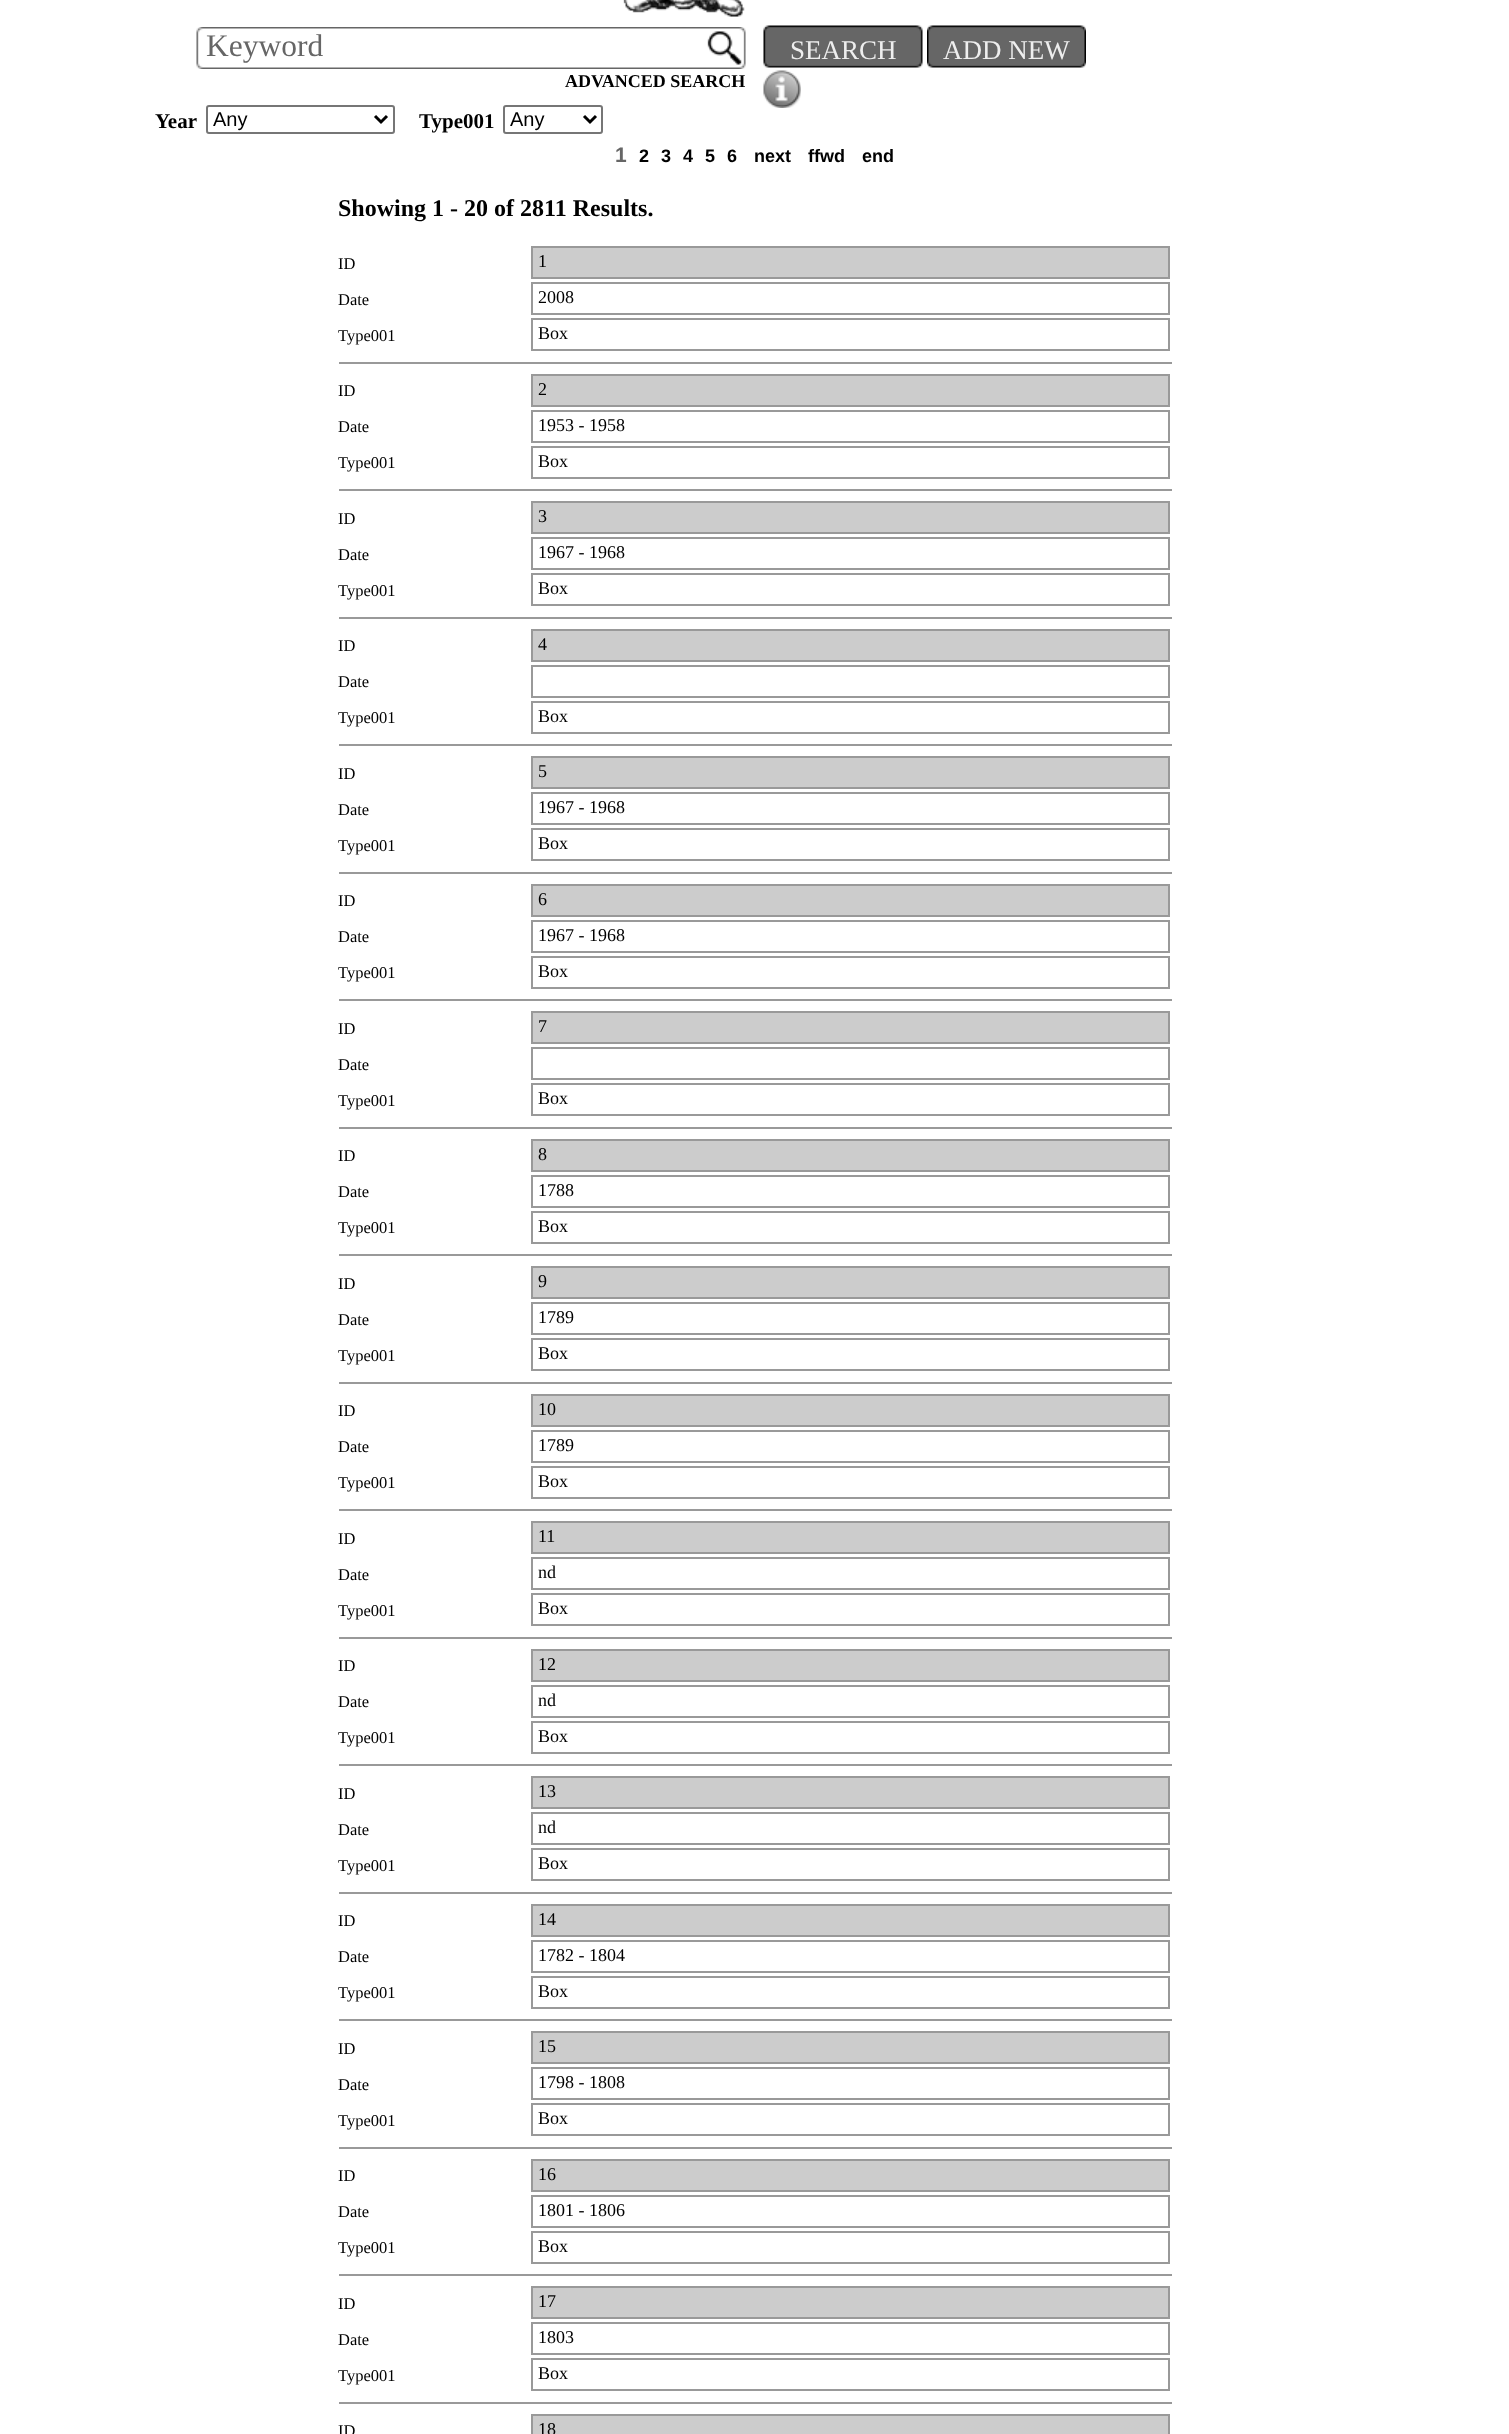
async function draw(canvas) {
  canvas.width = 1509;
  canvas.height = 2434;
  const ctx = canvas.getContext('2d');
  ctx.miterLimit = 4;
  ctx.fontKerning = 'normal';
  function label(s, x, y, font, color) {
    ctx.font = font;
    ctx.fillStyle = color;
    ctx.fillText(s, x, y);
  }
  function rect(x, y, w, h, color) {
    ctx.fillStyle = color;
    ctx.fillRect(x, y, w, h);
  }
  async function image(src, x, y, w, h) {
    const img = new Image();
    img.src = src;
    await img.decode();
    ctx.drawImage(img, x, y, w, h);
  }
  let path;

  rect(0, 0, 1509, 2434, '#fff');
  await image('assets/img1.png', 623, 0, 122, 17);
  await image('assets/img2.png', 196, 27, 550, 42);
  label('Keyword', 206, 56, '31.5px Liberation Serif', '#666');
  label('ADVANCED SEARCH', 565, 87, 'bold 18px Liberation Serif', '#000');
  label('Year', 155, 128, 'bold 21px Liberation Serif', '#000');
  ctx.beginPath();
  ctx.roundRect(207, 106, 187, 27, 2);
  ctx.strokeStyle = '#767676';
  ctx.lineWidth = 2;
  ctx.stroke();
  path = new Path2D('M375 116L381 122L387 116');
  ctx.strokeStyle = '#000';
  ctx.lineWidth = 3;
  ctx.stroke(path);
  label('Any', 213, 126, '20px Liberation Sans', '#000');
  label('Type001', 419, 128, 'bold 21px Liberation Serif', '#000');
  ctx.beginPath();
  ctx.roundRect(504, 106, 98, 27, 2);
  ctx.strokeStyle = '#767676';
  ctx.lineWidth = 2;
  ctx.stroke();
  path = new Path2D('M584 116L590 122L596 116');
  ctx.strokeStyle = '#000';
  ctx.lineWidth = 3;
  ctx.stroke(path);
  label('Any', 510, 126, '20px Liberation Sans', '#000');
  await image('assets/img3.png', 763, 25, 160, 43);
  label('SEARCH', 790, 59, '27px Liberation Serif', '#eee');
  await image('assets/img4.png', 927, 25, 159, 43);
  label('ADD NEW', 943, 59, '27px Liberation Serif', '#eee');
  await image('assets/img5.png', 763, 70, 38, 38);
  label('1', 615, 162, 'bold 21px Liberation Sans', '#666');
  label('2', 639, 162, 'bold 18px Liberation Sans', '#000');
  label('3', 661, 162, 'bold 18px Liberation Sans', '#000');
  label('4', 683, 162, 'bold 18px Liberation Sans', '#000');
  label('5', 705, 162, 'bold 18px Liberation Sans', '#000');
  label('6', 727, 162, 'bold 18px Liberation Sans', '#000');
  label('next', 754, 162, 'bold 18px Liberation Sans', '#000');
  label('ffwd', 808, 162, 'bold 18px Liberation Sans', '#000');
  label('end', 862, 162, 'bold 18px Liberation Sans', '#000');
  label('Showing 1 - 20 of 2811 Results.', 338, 216, 'bold 24px Liberation Serif', '#000');
  label('ID', 338, 269, '16.5px Liberation Serif', '#000');
  ctx.fillStyle = '#ccc';
  ctx.beginPath();
  ctx.rect(532, 247, 637, 31);
  ctx.fill();
  ctx.strokeStyle = '#999';
  ctx.lineWidth = 2;
  ctx.stroke();
  label('1', 538, 267, '18px Liberation Serif', '#000');
  label('Date', 338, 305, '16.5px Liberation Serif', '#000');
  ctx.strokeRect(532, 283, 637, 31);
  label('2008', 538, 303, '18px Liberation Serif', '#000');
  label('Type001', 338, 341, '16.5px Liberation Serif', '#000');
  ctx.strokeRect(532, 319, 637, 31);
  label('Box', 538, 339, '18px Liberation Serif', '#000');
  rect(339, 362, 833, 2, '#999');
  label('ID', 338, 396, '16.5px Liberation Serif', '#000');
  ctx.fillStyle = '#ccc';
  ctx.beginPath();
  ctx.rect(532, 375, 637, 31);
  ctx.fill();
  ctx.stroke();
  label('2', 538, 395, '18px Liberation Serif', '#000');
  label('Date', 338, 432, '16.5px Liberation Serif', '#000');
  ctx.strokeRect(532, 411, 637, 31);
  label('1953 - 1958', 538, 431, '18px Liberation Serif', '#000');
  label('Type001', 338, 468, '16.5px Liberation Serif', '#000');
  ctx.strokeRect(532, 447, 637, 31);
  label('Box', 538, 467, '18px Liberation Serif', '#000');
  rect(339, 489, 833, 2, '#999');
  label('ID', 338, 524, '16.5px Liberation Serif', '#000');
  ctx.fillStyle = '#ccc';
  ctx.beginPath();
  ctx.rect(532, 502, 637, 31);
  ctx.fill();
  ctx.stroke();
  label('3', 538, 522, '18px Liberation Serif', '#000');
  label('Date', 338, 560, '16.5px Liberation Serif', '#000');
  ctx.strokeRect(532, 538, 637, 31);
  label('1967 - 1968', 538, 558, '18px Liberation Serif', '#000');
  label('Type001', 338, 596, '16.5px Liberation Serif', '#000');
  ctx.strokeRect(532, 574, 637, 31);
  label('Box', 538, 594, '18px Liberation Serif', '#000');
  rect(339, 617, 833, 2, '#999');
  label('ID', 338, 651, '16.5px Liberation Serif', '#000');
  ctx.fillStyle = '#ccc';
  ctx.beginPath();
  ctx.rect(532, 630, 637, 31);
  ctx.fill();
  ctx.stroke();
  label('4', 538, 650, '18px Liberation Serif', '#000');
  label('Date', 338, 687, '16.5px Liberation Serif', '#000');
  ctx.strokeRect(532, 666, 637, 31);
  label('Type001', 338, 723, '16.5px Liberation Serif', '#000');
  ctx.strokeRect(532, 702, 637, 31);
  label('Box', 538, 722, '18px Liberation Serif', '#000');
  rect(339, 744, 833, 2, '#999');
  label('ID', 338, 779, '16.5px Liberation Serif', '#000');
  ctx.fillStyle = '#ccc';
  ctx.beginPath();
  ctx.rect(532, 757, 637, 31);
  ctx.fill();
  ctx.stroke();
  label('5', 538, 777, '18px Liberation Serif', '#000');
  label('Date', 338, 815, '16.5px Liberation Serif', '#000');
  ctx.strokeRect(532, 793, 637, 31);
  label('1967 - 1968', 538, 813, '18px Liberation Serif', '#000');
  label('Type001', 338, 851, '16.5px Liberation Serif', '#000');
  ctx.strokeRect(532, 829, 637, 31);
  label('Box', 538, 849, '18px Liberation Serif', '#000');
  rect(339, 872, 833, 2, '#999');
  label('ID', 338, 906, '16.5px Liberation Serif', '#000');
  ctx.fillStyle = '#ccc';
  ctx.beginPath();
  ctx.rect(532, 885, 637, 31);
  ctx.fill();
  ctx.stroke();
  label('6', 538, 905, '18px Liberation Serif', '#000');
  label('Date', 338, 942, '16.5px Liberation Serif', '#000');
  ctx.strokeRect(532, 921, 637, 31);
  label('1967 - 1968', 538, 941, '18px Liberation Serif', '#000');
  label('Type001', 338, 978, '16.5px Liberation Serif', '#000');
  ctx.strokeRect(532, 957, 637, 31);
  label('Box', 538, 977, '18px Liberation Serif', '#000');
  rect(339, 999, 833, 2, '#999');
  label('ID', 338, 1034, '16.5px Liberation Serif', '#000');
  ctx.fillStyle = '#ccc';
  ctx.beginPath();
  ctx.rect(532, 1012, 637, 31);
  ctx.fill();
  ctx.stroke();
  label('7', 538, 1032, '18px Liberation Serif', '#000');
  label('Date', 338, 1070, '16.5px Liberation Serif', '#000');
  ctx.strokeRect(532, 1048, 637, 31);
  label('Type001', 338, 1106, '16.5px Liberation Serif', '#000');
  ctx.strokeRect(532, 1084, 637, 31);
  label('Box', 538, 1104, '18px Liberation Serif', '#000');
  rect(339, 1127, 833, 2, '#999');
  label('ID', 338, 1161, '16.5px Liberation Serif', '#000');
  ctx.fillStyle = '#ccc';
  ctx.beginPath();
  ctx.rect(532, 1140, 637, 31);
  ctx.fill();
  ctx.stroke();
  label('8', 538, 1160, '18px Liberation Serif', '#000');
  label('Date', 338, 1197, '16.5px Liberation Serif', '#000');
  ctx.strokeRect(532, 1176, 637, 31);
  label('1788', 538, 1196, '18px Liberation Serif', '#000');
  label('Type001', 338, 1233, '16.5px Liberation Serif', '#000');
  ctx.strokeRect(532, 1212, 637, 31);
  label('Box', 538, 1232, '18px Liberation Serif', '#000');
  rect(339, 1254, 833, 2, '#999');
  label('ID', 338, 1289, '16.5px Liberation Serif', '#000');
  ctx.fillStyle = '#ccc';
  ctx.beginPath();
  ctx.rect(532, 1267, 637, 31);
  ctx.fill();
  ctx.stroke();
  label('9', 538, 1287, '18px Liberation Serif', '#000');
  label('Date', 338, 1325, '16.5px Liberation Serif', '#000');
  ctx.strokeRect(532, 1303, 637, 31);
  label('1789', 538, 1323, '18px Liberation Serif', '#000');
  label('Type001', 338, 1361, '16.5px Liberation Serif', '#000');
  ctx.strokeRect(532, 1339, 637, 31);
  label('Box', 538, 1359, '18px Liberation Serif', '#000');
  rect(339, 1382, 833, 2, '#999');
  label('ID', 338, 1416, '16.5px Liberation Serif', '#000');
  ctx.fillStyle = '#ccc';
  ctx.beginPath();
  ctx.rect(532, 1395, 637, 31);
  ctx.fill();
  ctx.stroke();
  label('10', 538, 1415, '18px Liberation Serif', '#000');
  label('Date', 338, 1452, '16.5px Liberation Serif', '#000');
  ctx.strokeRect(532, 1431, 637, 31);
  label('1789', 538, 1451, '18px Liberation Serif', '#000');
  label('Type001', 338, 1488, '16.5px Liberation Serif', '#000');
  ctx.strokeRect(532, 1467, 637, 31);
  label('Box', 538, 1487, '18px Liberation Serif', '#000');
  rect(339, 1509, 833, 2, '#999');
  label('ID', 338, 1544, '16.5px Liberation Serif', '#000');
  ctx.fillStyle = '#ccc';
  ctx.beginPath();
  ctx.rect(532, 1522, 637, 31);
  ctx.fill();
  ctx.stroke();
  label('11', 538, 1542, '18px Liberation Serif', '#000');
  label('Date', 338, 1580, '16.5px Liberation Serif', '#000');
  ctx.strokeRect(532, 1558, 637, 31);
  label('nd', 538, 1578, '18px Liberation Serif', '#000');
  label('Type001', 338, 1616, '16.5px Liberation Serif', '#000');
  ctx.strokeRect(532, 1594, 637, 31);
  label('Box', 538, 1614, '18px Liberation Serif', '#000');
  rect(339, 1637, 833, 2, '#999');
  label('ID', 338, 1671, '16.5px Liberation Serif', '#000');
  ctx.fillStyle = '#ccc';
  ctx.beginPath();
  ctx.rect(532, 1650, 637, 31);
  ctx.fill();
  ctx.stroke();
  label('12', 538, 1670, '18px Liberation Serif', '#000');
  label('Date', 338, 1707, '16.5px Liberation Serif', '#000');
  ctx.strokeRect(532, 1686, 637, 31);
  label('nd', 538, 1706, '18px Liberation Serif', '#000');
  label('Type001', 338, 1743, '16.5px Liberation Serif', '#000');
  ctx.strokeRect(532, 1722, 637, 31);
  label('Box', 538, 1742, '18px Liberation Serif', '#000');
  rect(339, 1764, 833, 2, '#999');
  label('ID', 338, 1799, '16.5px Liberation Serif', '#000');
  ctx.fillStyle = '#ccc';
  ctx.beginPath();
  ctx.rect(532, 1777, 637, 31);
  ctx.fill();
  ctx.stroke();
  label('13', 538, 1797, '18px Liberation Serif', '#000');
  label('Date', 338, 1835, '16.5px Liberation Serif', '#000');
  ctx.strokeRect(532, 1813, 637, 31);
  label('nd', 538, 1833, '18px Liberation Serif', '#000');
  label('Type001', 338, 1871, '16.5px Liberation Serif', '#000');
  ctx.strokeRect(532, 1849, 637, 31);
  label('Box', 538, 1869, '18px Liberation Serif', '#000');
  rect(339, 1892, 833, 2, '#999');
  label('ID', 338, 1926, '16.5px Liberation Serif', '#000');
  ctx.fillStyle = '#ccc';
  ctx.beginPath();
  ctx.rect(532, 1905, 637, 31);
  ctx.fill();
  ctx.stroke();
  label('14', 538, 1925, '18px Liberation Serif', '#000');
  label('Date', 338, 1962, '16.5px Liberation Serif', '#000');
  ctx.strokeRect(532, 1941, 637, 31);
  label('1782 - 1804', 538, 1961, '18px Liberation Serif', '#000');
  label('Type001', 338, 1998, '16.5px Liberation Serif', '#000');
  ctx.strokeRect(532, 1977, 637, 31);
  label('Box', 538, 1997, '18px Liberation Serif', '#000');
  rect(339, 2019, 833, 2, '#999');
  label('ID', 338, 2054, '16.5px Liberation Serif', '#000');
  ctx.fillStyle = '#ccc';
  ctx.beginPath();
  ctx.rect(532, 2032, 637, 31);
  ctx.fill();
  ctx.stroke();
  label('15', 538, 2052, '18px Liberation Serif', '#000');
  label('Date', 338, 2090, '16.5px Liberation Serif', '#000');
  ctx.strokeRect(532, 2068, 637, 31);
  label('1798 - 1808', 538, 2088, '18px Liberation Serif', '#000');
  label('Type001', 338, 2126, '16.5px Liberation Serif', '#000');
  ctx.strokeRect(532, 2104, 637, 31);
  label('Box', 538, 2124, '18px Liberation Serif', '#000');
  rect(339, 2147, 833, 2, '#999');
  label('ID', 338, 2181, '16.5px Liberation Serif', '#000');
  ctx.fillStyle = '#ccc';
  ctx.beginPath();
  ctx.rect(532, 2160, 637, 31);
  ctx.fill();
  ctx.stroke();
  label('16', 538, 2180, '18px Liberation Serif', '#000');
  label('Date', 338, 2217, '16.5px Liberation Serif', '#000');
  ctx.strokeRect(532, 2196, 637, 31);
  label('1801 - 1806', 538, 2216, '18px Liberation Serif', '#000');
  label('Type001', 338, 2253, '16.5px Liberation Serif', '#000');
  ctx.strokeRect(532, 2232, 637, 31);
  label('Box', 538, 2252, '18px Liberation Serif', '#000');
  rect(339, 2274, 833, 2, '#999');
  label('ID', 338, 2309, '16.5px Liberation Serif', '#000');
  ctx.fillStyle = '#ccc';
  ctx.beginPath();
  ctx.rect(532, 2287, 637, 31);
  ctx.fill();
  ctx.stroke();
  label('17', 538, 2307, '18px Liberation Serif', '#000');
  label('Date', 338, 2345, '16.5px Liberation Serif', '#000');
  ctx.strokeRect(532, 2323, 637, 31);
  label('1803', 538, 2343, '18px Liberation Serif', '#000');
  label('Type001', 338, 2381, '16.5px Liberation Serif', '#000');
  ctx.strokeRect(532, 2359, 637, 31);
  label('Box', 538, 2379, '18px Liberation Serif', '#000');
  rect(339, 2402, 833, 2, '#999');
  label('ID', 338, 2436, '16.5px Liberation Serif', '#000');
  ctx.fillStyle = '#ccc';
  ctx.beginPath();
  ctx.rect(532, 2415, 637, 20);
  ctx.fill();
  ctx.stroke();
  label('18', 538, 2435, '18px Liberation Serif', '#000');
}

draw(document.querySelector('canvas'));
